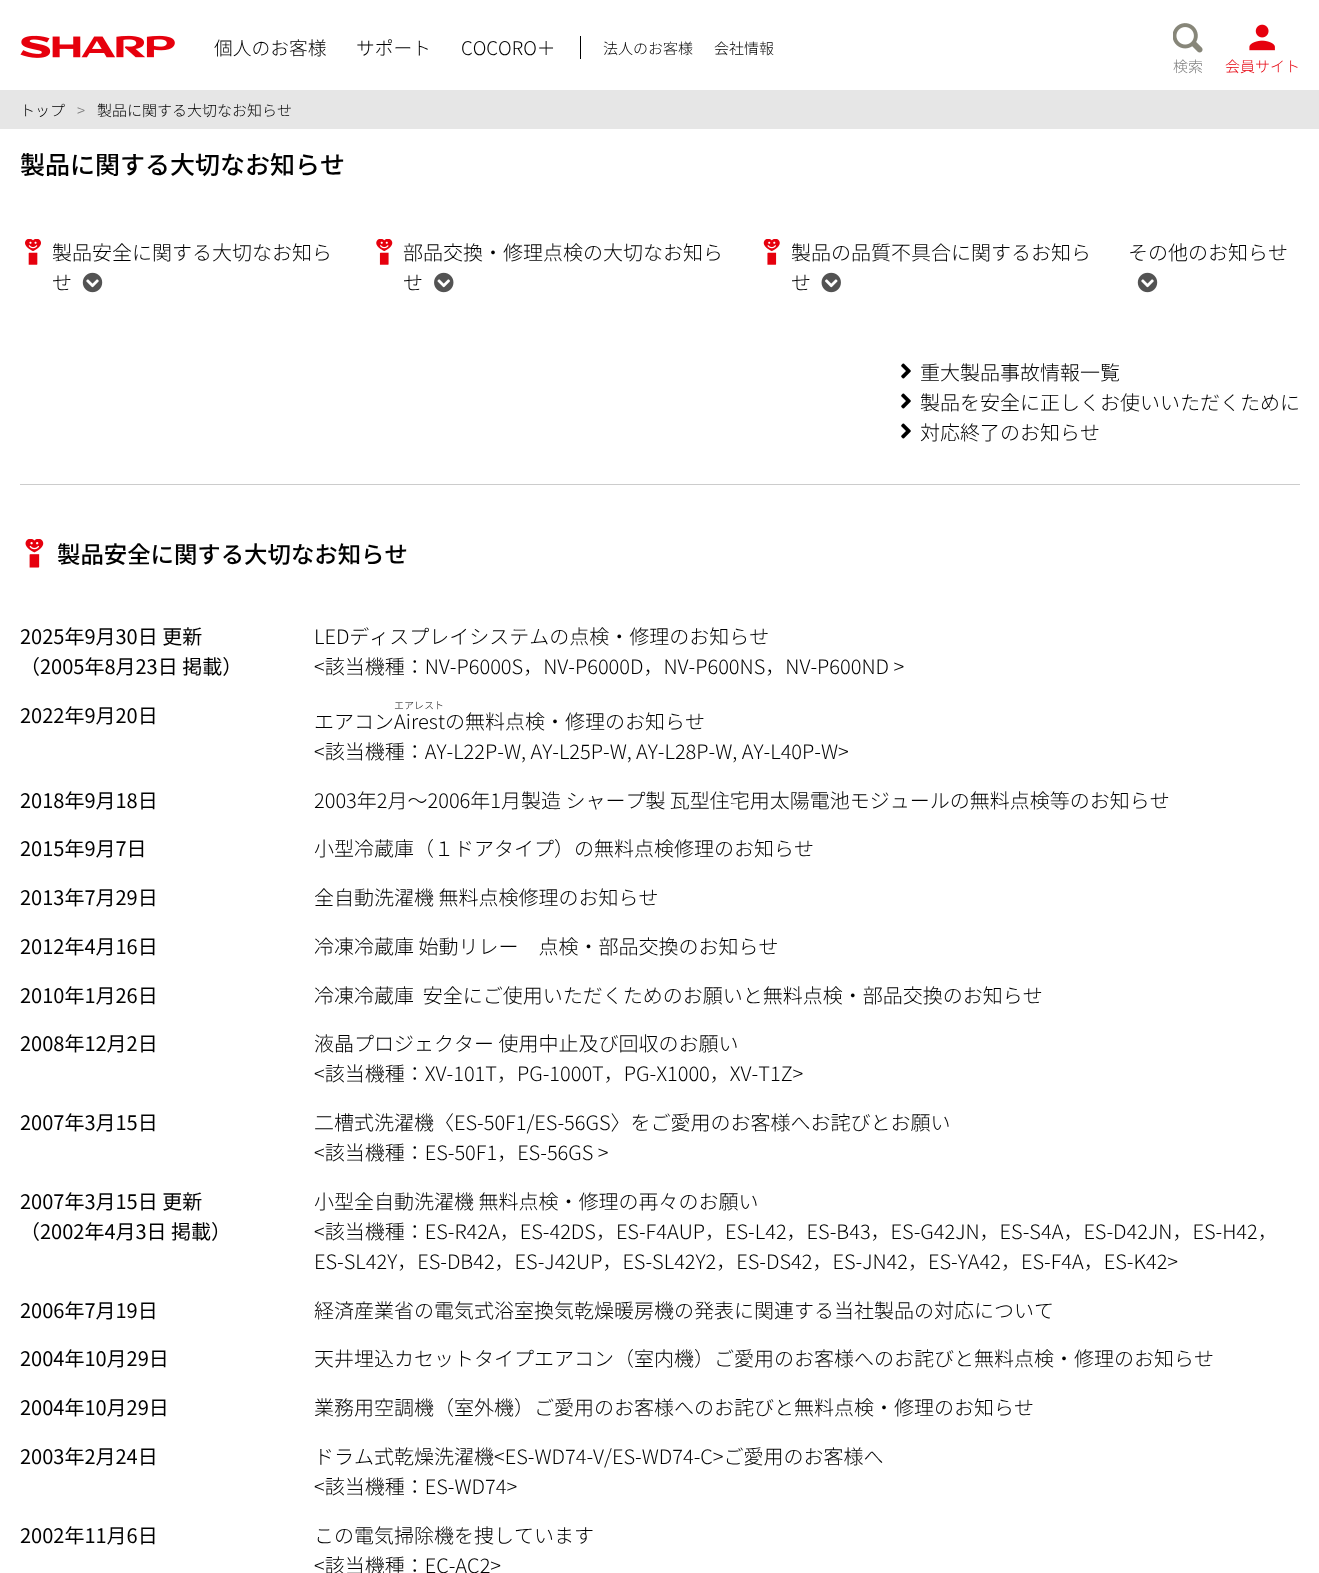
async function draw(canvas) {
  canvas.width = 1319;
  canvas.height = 1573;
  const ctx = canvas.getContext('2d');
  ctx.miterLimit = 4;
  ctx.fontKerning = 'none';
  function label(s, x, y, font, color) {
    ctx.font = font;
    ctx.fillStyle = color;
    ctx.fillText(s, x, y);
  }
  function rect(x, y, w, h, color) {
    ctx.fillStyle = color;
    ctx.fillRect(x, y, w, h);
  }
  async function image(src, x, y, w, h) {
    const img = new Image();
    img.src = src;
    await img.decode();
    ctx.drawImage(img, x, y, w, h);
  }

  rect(0, 0, 1319, 1573, '#fff');
  rect(0, 90, 1319, 39, '#e6e6e6');
  await image('assets/img1.png', 20, 35, 155, 23);
  label('個人のお客様', 214, 55, '300 18.75px Noto Sans JP', '#000');
  label('サポート', 356, 55, '300 18.75px Noto Sans JP', '#000');
  label('COCORO＋', 461, 55, '300 18.75px Noto Sans JP', '#000');
  rect(580, 36, 1, 23, '#000');
  label('法人のお客様', 603, 54, '300 15px Noto Sans JP', '#000');
  label('会社情報', 714, 54, '300 15px Noto Sans JP', '#000');
  await image('assets/img2.png', 1173, 23, 30, 30);
  label('検索', 1173, 72, '300 15px Noto Sans JP', '#7d7d7d');
  await image('assets/img3.png', 1249, 24, 26, 27);
  label('会員サイト', 1225, 72, '300 15px Noto Sans JP', '#e6000d');
  label('トップ', 20, 116, '300 15px Noto Sans JP', '#000');
  label('>', 77, 116, '300 15px Noto Sans JP', '#7d7d7d');
  label('製品に関する大切なお知らせ', 97, 116, '300 15px Noto Sans JP', '#000');
  label('製品に関する大切なお知らせ', 20, 174, '500 25px Noto Sans JP', '#000');
  rect(20, 484, 1280, 1, '#ccc');
  await image('assets/img4.png', 25, 239, 16, 26);
  label('製品安全に関する大切なお知ら', 52, 260, '300 20px Noto Sans JP', '#000');
  label('せ', 52, 290, '300 20px Noto Sans JP', '#000');
  await image('assets/img5.png', 82, 272, 21, 21);
  await image('assets/img6.png', 376, 239, 17, 26);
  label('部品交換・修理点検の大切なお知ら', 403, 260, '300 20px Noto Sans JP', '#000');
  label('せ', 403, 290, '300 20px Noto Sans JP', '#000');
  await image('assets/img7.png', 434, 272, 20, 21);
  await image('assets/img8.png', 763, 239, 17, 26);
  label('製品の品質不具合に関するお知ら', 791, 260, '300 20px Noto Sans JP', '#000');
  label('せ', 791, 290, '300 20px Noto Sans JP', '#000');
  await image('assets/img9.png', 821, 272, 20, 21);
  label('その他のお知らせ', 1128, 260, '300 20px Noto Sans JP', '#000');
  await image('assets/img5.png', 1137, 272, 21, 21);
  await image('assets/img10.png', 901, 363, 10, 16);
  label('重大製品事故情報一覧', 920, 380, '300 20px Noto Sans JP', '#000');
  await image('assets/img10.png', 901, 393, 10, 16);
  label('製品を安全に正しくお使いいただくために', 920, 410, '300 20px Noto Sans JP', '#000');
  await image('assets/img10.png', 901, 423, 10, 16);
  label('対応終了のお知らせ', 920, 440, '300 20px Noto Sans JP', '#000');
  await image('assets/img11.png', 25, 539, 19, 29);
  label('製品安全に関する大切なお知らせ', 57, 563, '500 23.4px Noto Sans JP', '#000');
  label('2025年9月30日 更新', 20, 644, '20px Noto Sans JP', '#000');
  label('（2005年8月23日 掲載）', 20, 674, '20px Noto Sans JP', '#000');
  label('LEDディスプレイシステムの点検・修理のお知らせ', 314, 644, '300 20px Noto Sans JP', '#000');
  label('<該当機種：NV-P6000S，NV-P6000D，NV-P600NS，NV-P600ND >', 314, 674, '300 20px Noto Sans JP', '#000');
  label('2022年9月20日', 20, 723, '20px Noto Sans JP', '#000');
  label('エアレスト', 394, 709, '300 10px Noto Sans JP', '#000');
  label('エアコンAirestの無料点検・修理のお知らせ', 314, 729, '300 20px Noto Sans JP', '#000');
  label('<該当機種：AY-L22P-W, AY-L25P-W,', 314, 759, '300 20px Noto Sans JP', '#000');
  label('AY-L28P-W, AY-L40P-W>', 636, 759, '300 20px Noto Sans JP', '#000');
  label('2018年9月18日', 20, 808, '20px Noto Sans JP', '#000');
  label('2003年2月～2006年1月製造 シャープ製 瓦型住宅用太陽電池モジュールの無料点検等のお知らせ', 314, 808, '300 20px Noto Sans JP', '#000');
  label('2015年9月7日', 20, 856, '20px Noto Sans JP', '#000');
  label('小型冷蔵庫（１ドアタイプ）の無料点検修理のお知らせ', 314, 856, '300 20px Noto Sans JP', '#000');
  label('2013年7月29日', 20, 905, '20px Noto Sans JP', '#000');
  label('全自動洗濯機 無料点検修理のお知らせ', 314, 905, '300 20px Noto Sans JP', '#000');
  label('2012年4月16日', 20, 954, '20px Noto Sans JP', '#000');
  label('冷凍冷蔵庫 始動リレー　点検・部品交換のお知らせ', 314, 954, '300 20px Noto Sans JP', '#000');
  label('2010年1月26日', 20, 1003, '20px Noto Sans JP', '#000');
  label('冷凍冷蔵庫  安全にご使用いただくためのお願いと無料点検・部品交換のお知らせ', 314, 1003, '300 20px Noto Sans JP', '#000');
  label('2008年12月2日', 20, 1051, '20px Noto Sans JP', '#000');
  label('液晶プロジェクター 使用中止及び回収のお願い', 314, 1051, '300 20px Noto Sans JP', '#000');
  label('<該当機種：XV-101T，PG-1000T，PG-X1000，XV-T1Z>', 314, 1081, '300 20px Noto Sans JP', '#000');
  label('2007年3月15日', 20, 1130, '20px Noto Sans JP', '#000');
  label('二槽式洗濯機〈ES-50F1/ES-56GS〉をご愛用のお客様へお詫びとお願い', 314, 1130, '300 20px Noto Sans JP', '#000');
  label('<該当機種：ES-50F1，ES-56GS >', 314, 1160, '300 20px Noto Sans JP', '#000');
  label('2007年3月15日 更新', 20, 1209, '20px Noto Sans JP', '#000');
  label('（2002年4月3日 掲載）', 20, 1239, '20px Noto Sans JP', '#000');
  label('小型全自動洗濯機 無料点検・修理の再々のお願い', 314, 1209, '300 20px Noto Sans JP', '#000');
  label('<該当機種：ES-R42A，ES-42DS，ES-F4AUP，ES-L42，ES-B43，ES-G42JN，ES-S4A，ES-D42JN，ES-H42，', 314, 1239, '300 20px Noto Sans JP', '#000');
  label('ES-SL42Y，ES-DB42，ES-J42UP，ES-SL42Y2，ES-DS42，ES-JN42，ES-YA42，ES-F4A，ES-K42>', 314, 1269, '300 20px Noto Sans JP', '#000');
  label('2006年7月19日', 20, 1318, '20px Noto Sans JP', '#000');
  label('経済産業省の電気式浴室換気乾燥暖房機の発表に関連する当社製品の対応について', 314, 1318, '300 20px Noto Sans JP', '#000');
  label('2004年10月29日', 20, 1366, '20px Noto Sans JP', '#000');
  label('天井埋込カセットタイプエアコン（室内機）ご愛用のお客様へのお詫びと無料点検・修理のお知らせ', 314, 1366, '300 20px Noto Sans JP', '#000');
  label('2004年10月29日', 20, 1415, '20px Noto Sans JP', '#000');
  label('業務用空調機（室外機）ご愛用のお客様へのお詫びと無料点検・修理のお知らせ', 314, 1415, '300 20px Noto Sans JP', '#000');
  label('2003年2月24日', 20, 1464, '20px Noto Sans JP', '#000');
  label('ドラム式乾燥洗濯機<ES-WD74-V/ES-WD74-C>ご愛用のお客様へ', 314, 1464, '300 20px Noto Sans JP', '#000');
  label('<該当機種：ES-WD74>', 314, 1494, '300 20px Noto Sans JP', '#000');
  label('2002年11月6日', 20, 1543, '20px Noto Sans JP', '#000');
  label('この電気掃除機を捜しています', 314, 1543, '300 20px Noto Sans JP', '#000');
  label('<該当機種：EC-AC2>', 314, 1573, '300 20px Noto Sans JP', '#000');
}

draw(document.querySelector('canvas'));
